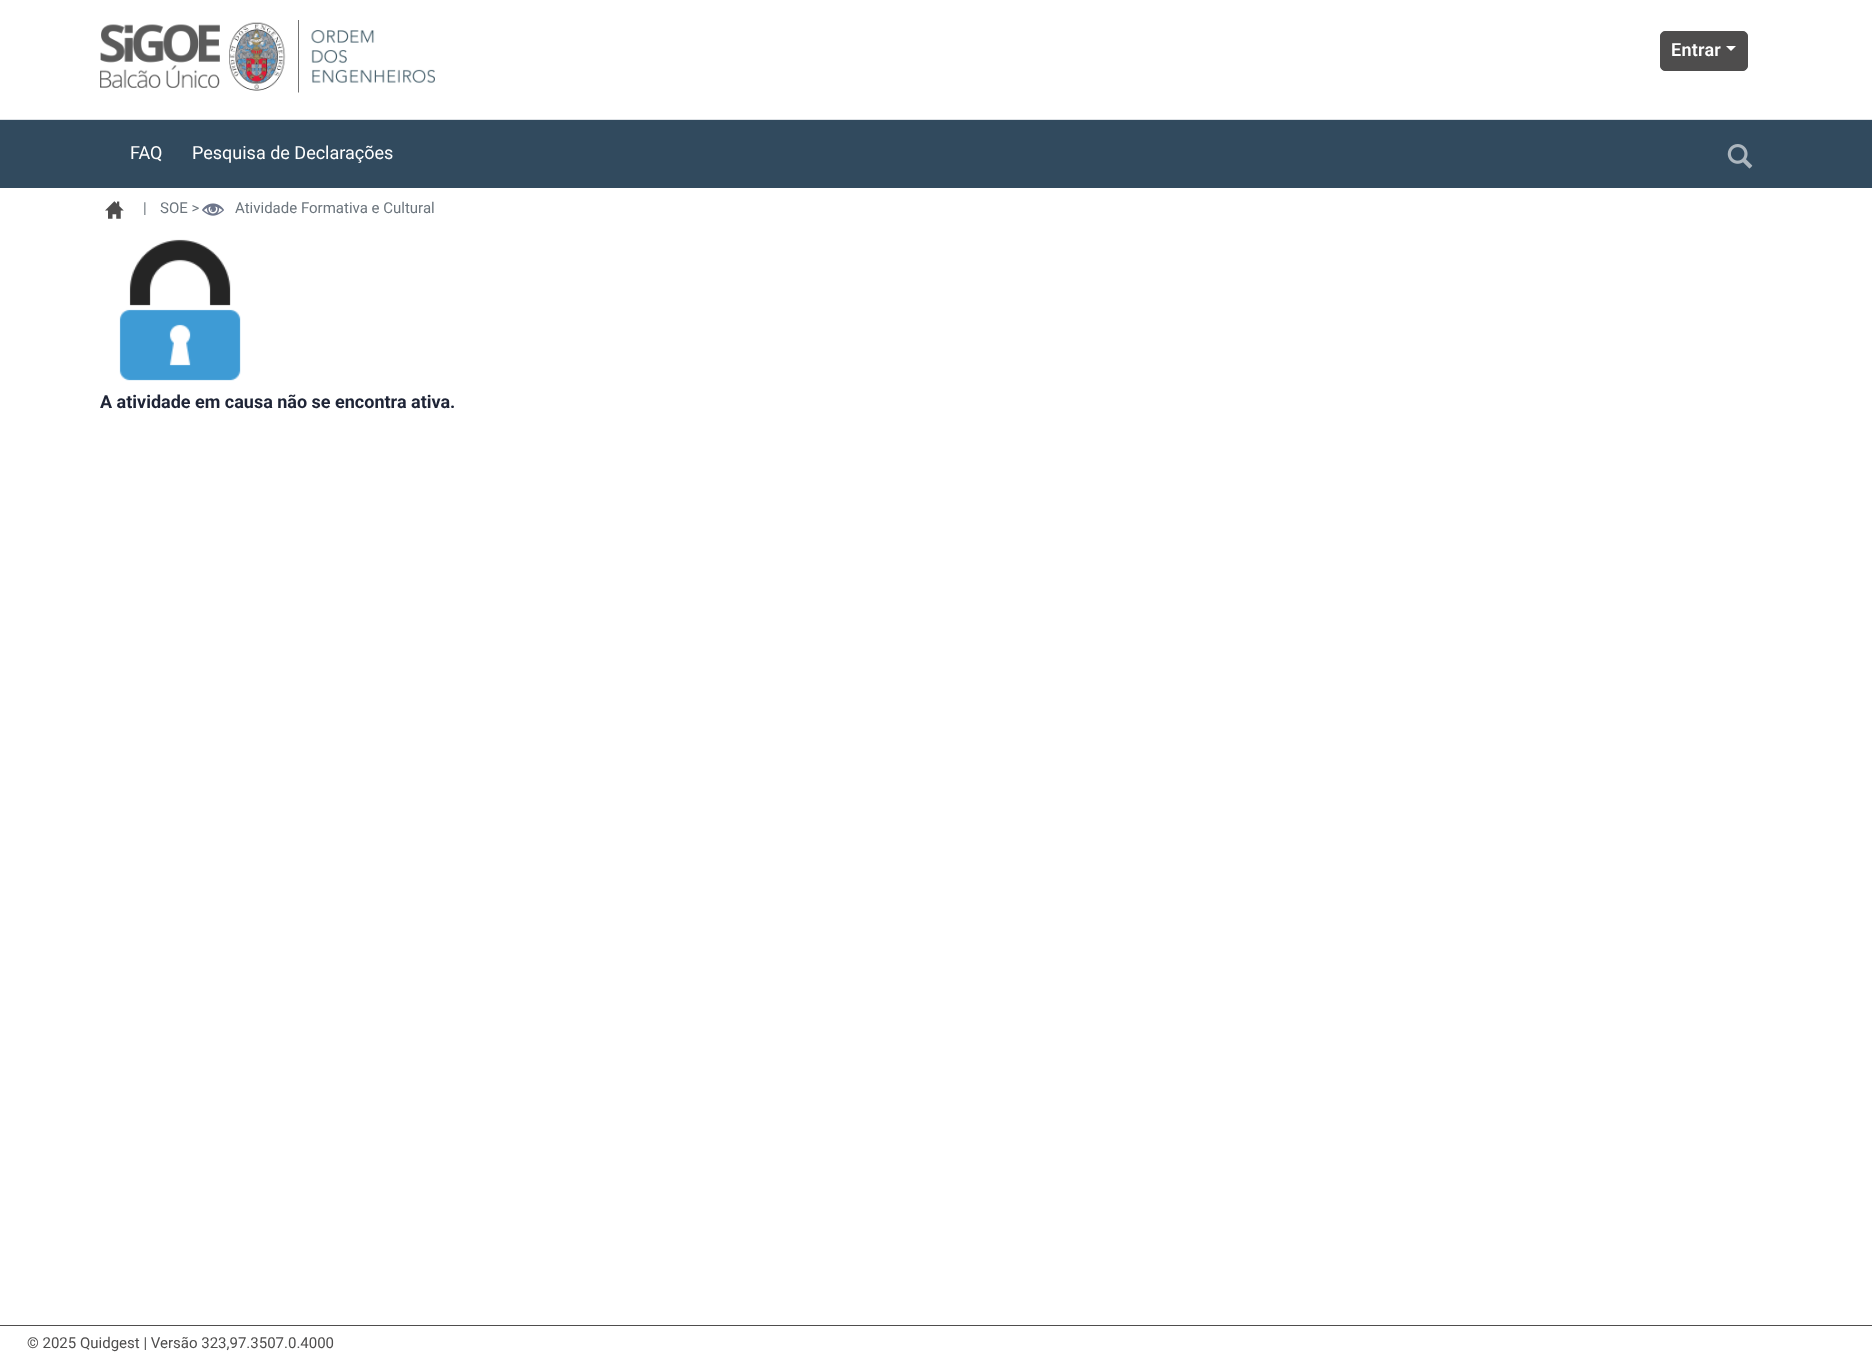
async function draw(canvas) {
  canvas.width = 1872;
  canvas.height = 1353;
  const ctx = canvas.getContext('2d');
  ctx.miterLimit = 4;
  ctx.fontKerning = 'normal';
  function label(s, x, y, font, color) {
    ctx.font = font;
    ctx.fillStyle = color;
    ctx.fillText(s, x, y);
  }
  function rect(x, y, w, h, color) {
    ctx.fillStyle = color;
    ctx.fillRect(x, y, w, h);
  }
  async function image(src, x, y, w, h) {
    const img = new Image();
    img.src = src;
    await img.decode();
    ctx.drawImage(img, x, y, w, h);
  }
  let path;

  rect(0, 0, 1872, 1353, '#fff');
  rect(0, 119, 1872, 1, '#dee2e6');
  await image('assets/img1.png', 100, 20, 335, 73);
  ctx.fillStyle = '#4e4d4d';
  ctx.beginPath();
  ctx.roundRect(1660.5, 31.5, 87, 39, 4.5);
  ctx.fill();
  ctx.strokeStyle = '#4e4d4d';
  ctx.stroke();
  ctx.letterSpacing = '0.25px';
  label('Entrar', 1671, 56, '600 18px Roboto', '#fff');
  path = new Path2D('M1726 46H1736L1731 51Z');
  ctx.fill(path);
  rect(0, 120, 1872, 68, '#314a5e');
  ctx.letterSpacing = '0px';
  label('FAQ', 130, 159, '18px Roboto', '#fff');
  label('Pesquisa de Declarações', 192, 159, '18px Roboto', '#fff');
  await image('assets/img2.png', 1727, 144, 26, 25);
  await image('assets/img3.png', 105, 201, 19, 18);
  label('|', 143, 213, '15px Roboto', '#6c757d');
  label('SOE >', 160, 213, '15px Roboto', '#6c757d');
  await image('assets/img4.png', 202, 203, 22, 13);
  label('Atividade Formativa e Cultural', 235, 213, '15px Roboto', '#6c757d');
  await image('assets/img5.png', 119, 239, 122, 142);
  label('A atividade em causa não se encontra ativa.', 100, 408, 'bold 18px Roboto', '#1e2436');
  rect(0, 1325, 1872, 1, '#4e4d4d');
  label('© 2025 Quidgest | Versão 323,97.3507.0.4000', 27, 1348, '15px Roboto', '#4e4d4d');
}

draw(document.querySelector('canvas'));
